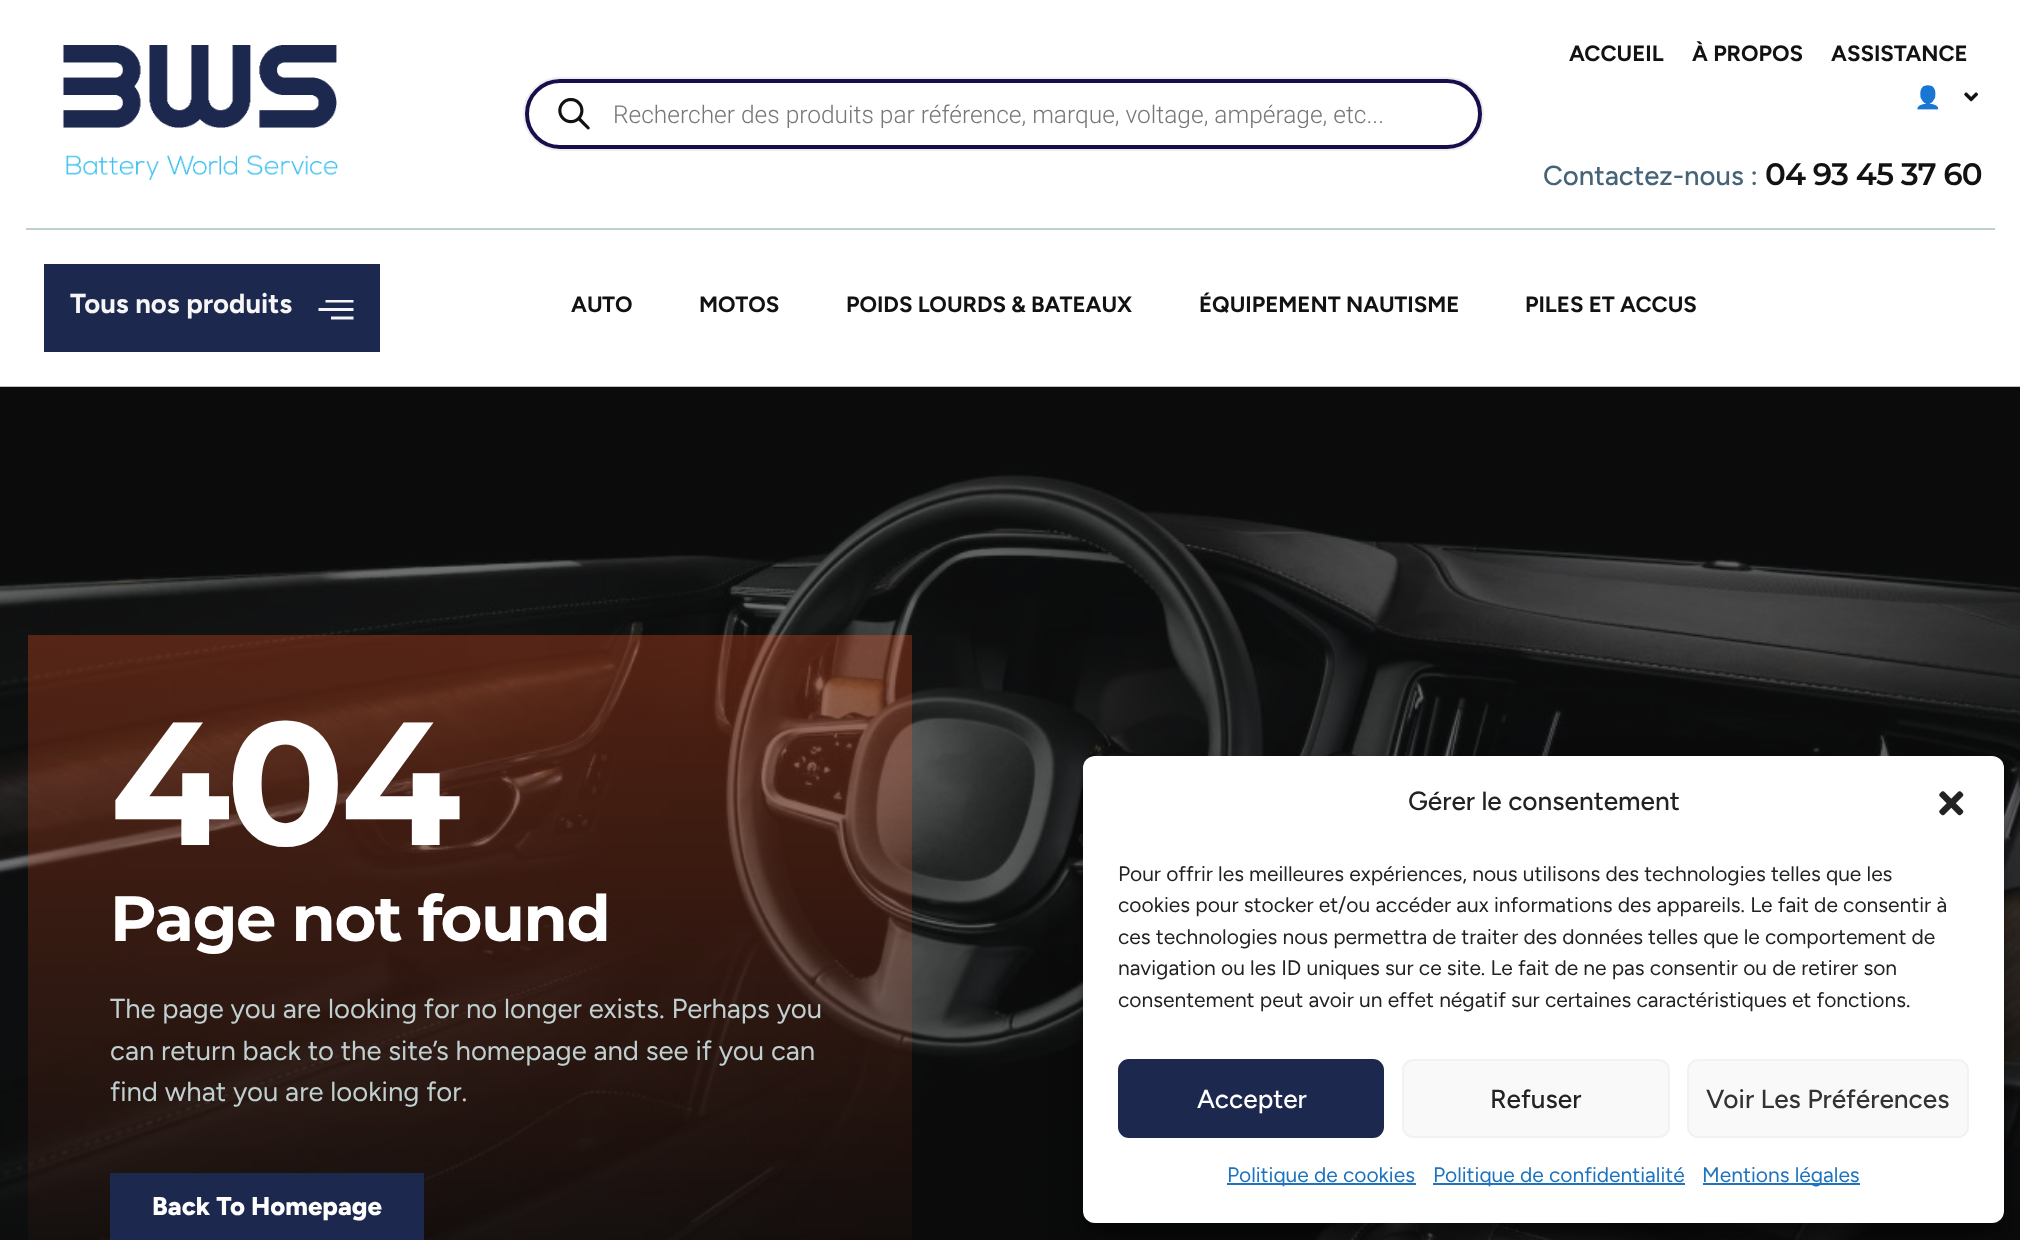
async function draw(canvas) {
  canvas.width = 2020;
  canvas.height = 1240;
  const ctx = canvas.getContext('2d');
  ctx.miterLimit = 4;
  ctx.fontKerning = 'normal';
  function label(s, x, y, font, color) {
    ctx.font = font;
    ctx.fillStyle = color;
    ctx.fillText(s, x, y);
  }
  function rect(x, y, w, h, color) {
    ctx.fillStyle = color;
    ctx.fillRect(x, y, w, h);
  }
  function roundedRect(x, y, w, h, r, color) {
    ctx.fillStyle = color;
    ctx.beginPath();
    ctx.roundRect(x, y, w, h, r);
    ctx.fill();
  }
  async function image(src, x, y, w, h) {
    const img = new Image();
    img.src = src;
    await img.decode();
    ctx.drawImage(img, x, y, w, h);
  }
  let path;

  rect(0, 0, 2020, 1240, '#fff');
  await image('assets/img1.png', 62, 45, 276, 135);
  ctx.beginPath();
  ctx.roundRect(524, 78, 959, 72, 36);
  ctx.strokeStyle = '#eee';
  ctx.lineWidth = 2;
  ctx.stroke();
  ctx.beginPath();
  ctx.roundRect(527, 81, 953, 66, 33);
  ctx.fill();
  ctx.strokeStyle = '#190d4c';
  ctx.lineWidth = 4;
  ctx.stroke();
  await image('assets/img2.png', 558, 98, 32, 32);
  ctx.save();
  ctx.beginPath();
  ctx.rect(613, 100, 824, 28);
  ctx.clip();
  label('Rechercher des produits par référence, marque, voltage, ampérage, etc...', 613, 123, '300 24.5px Roboto', '#777');
  ctx.restore();
  label('ACCUEIL', 1569, 61, 'bold 22.25px Figtree', '#111213');
  label('À PROPOS', 1692, 61, 'bold 22.25px Figtree', '#111213');
  label('ASSISTANCE', 1831, 61, 'bold 22.25px Figtree', '#111213');
  label('👤', 1914, 105, 'bold 22.25px Noto Color Emoji', '#111213');
  await image('assets/img3.png', 1964, 92, 15, 10);
  label('Contactez-nous :', 1543, 185, '500 27.5px Figtree', '#456478');
  ctx.letterSpacing = '-0.9px';
  label('04 93 45 37 60', 1765, 185, '600 31px Montserrat', '#111213');
  rect(26, 228, 1969, 2, '#c0d0d0');
  rect(44, 264, 336, 88, '#1d284e');
  ctx.letterSpacing = '0px';
  label('Tous nos produits', 70, 313, 'bold 27.5px Figtree', '#f6f6f6');
  path = new Path2D('M318.5 311H353.5V308H318.5ZM331 319.5H353.5V316.5H331ZM325.5 300V302.5H353.5V300Z');
  ctx.fill(path);
  label('AUTO', 571, 312, 'bold 22.25px Figtree', '#111213');
  label('MOTOS', 699, 312, 'bold 22.25px Figtree', '#111213');
  label('POIDS LOURDS & BATEAUX', 846, 312, 'bold 22.25px Figtree', '#111213');
  label('ÉQUIPEMENT NAUTISME', 1199, 312, 'bold 22.25px Figtree', '#111213');
  label('PILES ET ACCUS', 1525, 312, 'bold 22.25px Figtree', '#111213');
  await image('assets/img4.png', 0, 386, 2020, 854);
  ctx.letterSpacing = '-4.5px';
  label('404', 110, 845, 'bold 175px Montserrat', '#fff');
  ctx.letterSpacing = '-1.5px';
  label('Page not found', 110, 941, 'bold 64px Montserrat', '#fff');
  ctx.letterSpacing = '0px';
  label('The page you are looking for no longer exists. Perhaps you', 110, 1018, '27.5px Figtree', '#c0d0d0');
  label('can return back to the site’s homepage and see if you can', 110, 1060, '27.5px Figtree', '#c0d0d0');
  label('find what you are looking for.', 110, 1101, '27.5px Figtree', '#c0d0d0');
  rect(110, 1173, 314, 67, '#1d284e');
  label('Back To Homepage', 152, 1215, '800 25.75px Figtree', '#fff');
  ctx.fillStyle = '#0000003b';
  ctx.filter = 'blur(5px)';
  ctx.beginPath();
  ctx.roundRect(1083, 767, 921, 467, 12);
  ctx.fill();
  ctx.filter = 'none';
  ctx.fillStyle = '#00000030';
  ctx.filter = 'blur(17.5px)';
  ctx.beginPath();
  ctx.roundRect(1083, 774, 921, 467, 12);
  ctx.fill();
  ctx.filter = 'none';
  roundedRect(1083, 756, 921, 467, 12, '#fff');
  label('Gérer le consentement', 1408, 810, '500 26.25px Figtree', '#222');
  await image('assets/img5.png', 1939, 791, 25, 25);
  label('Pour offrir les meilleures expériences, nous utilisons des technologies telles que les', 1118, 881, '21px Figtree', '#222');
  label('cookies pour stocker et/ou accéder aux informations des appareils. Le fait de consentir à', 1118, 912, '21px Figtree', '#222');
  label('ces technologies nous permettra de traiter des données telles que le comportement de', 1118, 944, '21px Figtree', '#222');
  label('navigation ou les ID uniques sur ce site. Le fait de ne pas consentir ou de retirer son', 1118, 975, '21px Figtree', '#222');
  label('consentement peut avoir un effet négatif sur certaines caractéristiques et fonctions.', 1118, 1007, '21px Figtree', '#222');
  ctx.fillStyle = '#1d284e';
  ctx.beginPath();
  ctx.roundRect(1119, 1060, 264, 77, 10);
  ctx.fill();
  ctx.strokeStyle = '#1d284e';
  ctx.lineWidth = 2;
  ctx.stroke();
  label('Accepter', 1197, 1108, '500 26.25px Figtree', '#fff');
  ctx.fillStyle = '#f9f9f9';
  ctx.beginPath();
  ctx.roundRect(1403, 1060, 266, 77, 10);
  ctx.fill();
  ctx.strokeStyle = '#f2f2f2';
  ctx.stroke();
  label('Refuser', 1490, 1108, '500 26.25px Figtree', '#222');
  ctx.fillStyle = '#f9f9f9';
  ctx.beginPath();
  ctx.roundRect(1688, 1060, 280, 77, 10);
  ctx.fill();
  ctx.stroke();
  label('Voir Les Préférences', 1706, 1108, '500 26.25px Figtree', '#333');
  rect(1227, 1183, 189, 2, '#1e73be');
  label('Politique de cookies', 1227, 1182, '21px Figtree', '#1e73be');
  rect(1433, 1183, 252, 2, '#1e73be');
  label('Politique de confidentialité', 1433, 1182, '21px Figtree', '#1e73be');
  rect(1703, 1183, 157, 2, '#1e73be');
  label('Mentions légales', 1702, 1182, '21px Figtree', '#1e73be');
}

draw(document.querySelector('canvas'));
